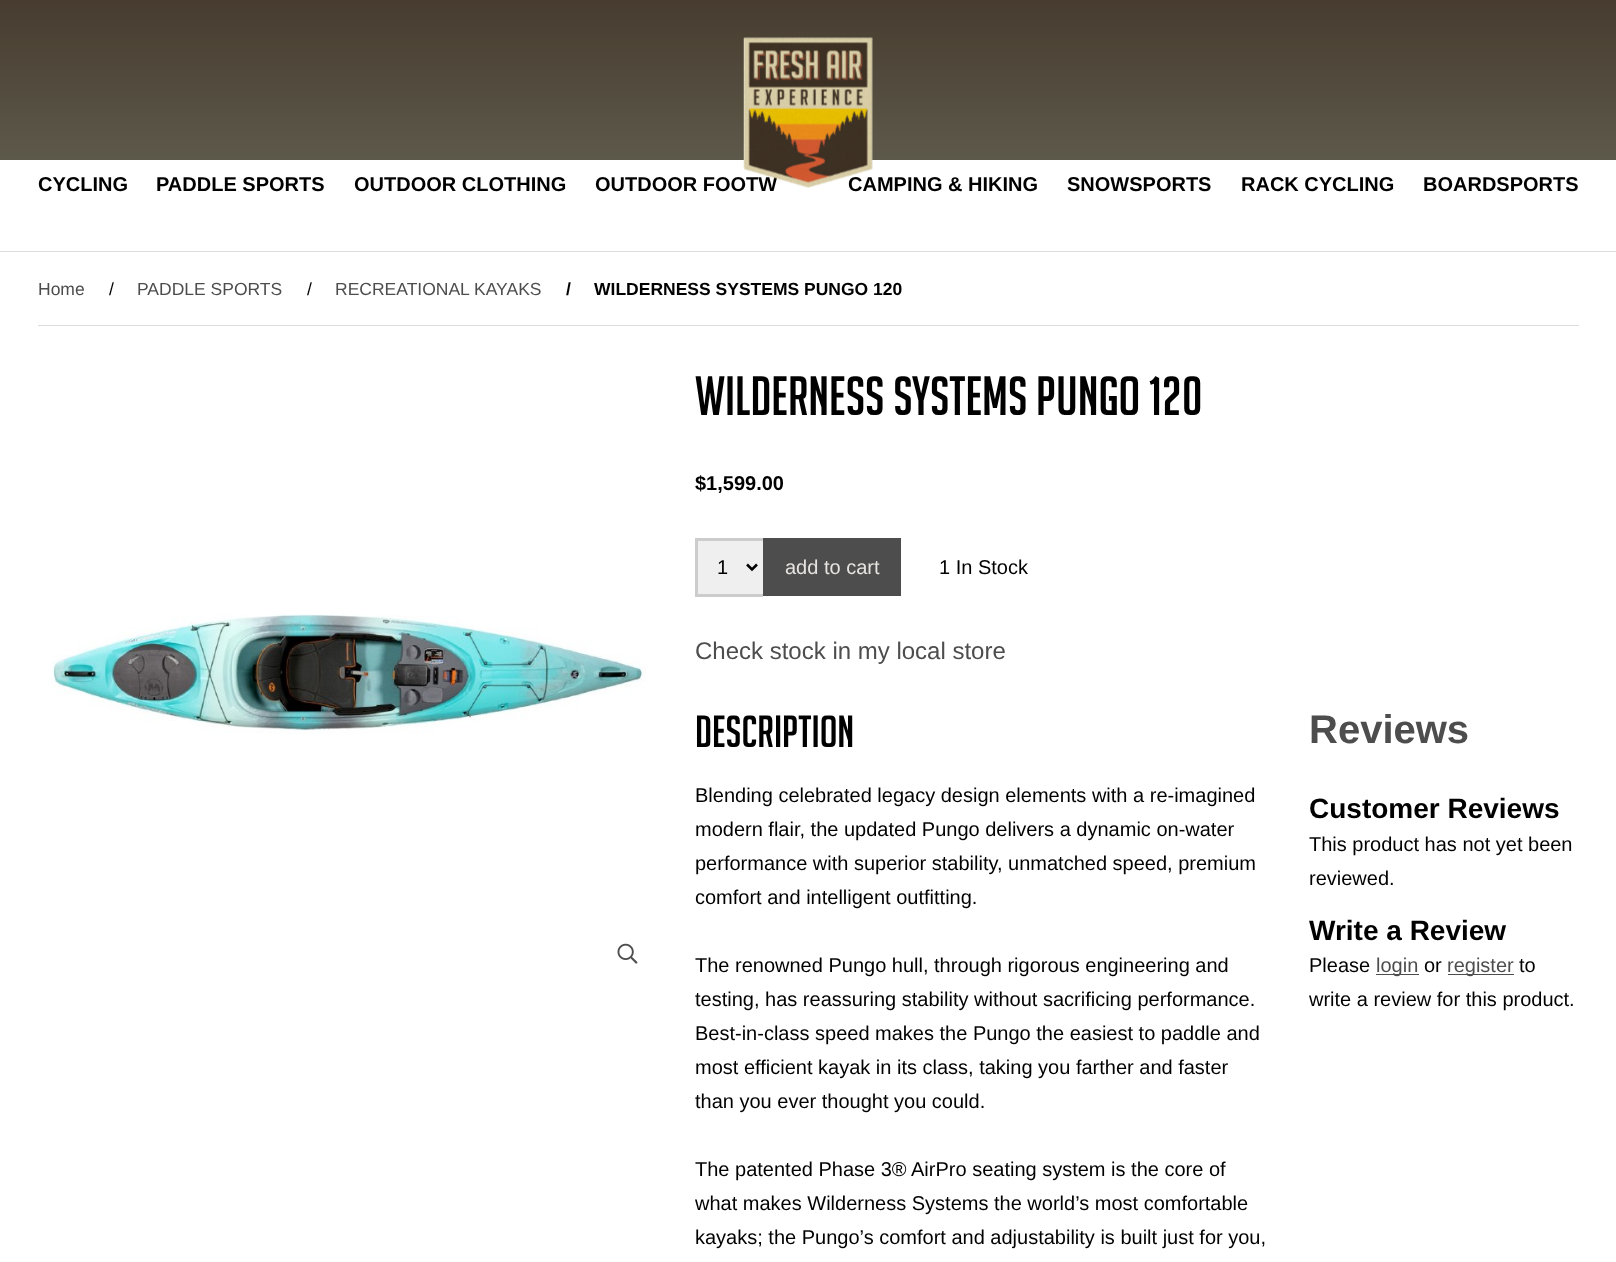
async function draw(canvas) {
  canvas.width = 1616;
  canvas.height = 1262;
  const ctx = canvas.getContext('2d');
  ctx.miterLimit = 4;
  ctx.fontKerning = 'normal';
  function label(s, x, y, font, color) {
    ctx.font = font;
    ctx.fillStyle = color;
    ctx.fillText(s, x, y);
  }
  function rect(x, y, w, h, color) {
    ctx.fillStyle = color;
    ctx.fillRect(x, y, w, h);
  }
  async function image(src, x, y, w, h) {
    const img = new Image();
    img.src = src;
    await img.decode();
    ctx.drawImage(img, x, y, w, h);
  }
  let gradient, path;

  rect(0, 0, 1616, 1262, '#fff');
  gradient = ctx.createLinearGradient(808, 0, 808, 160);
  gradient.addColorStop(0, '#473c2f');
  gradient.addColorStop(1, '#5d594a');
  ctx.fillStyle = gradient;
  ctx.fillRect(0, 0, 1616, 160);
  label('OUTDOOR FOOTW', 595, 191, 'bold 20px Liberation Sans', '#000');
  label('CAMPING & HIKING', 848, 191, 'bold 20px Liberation Sans', '#000');
  await image('assets/img1.png', 743, 37, 130, 151);
  rect(0, 251, 1616, 1, '#ddd');
  label('CYCLING', 38, 191, 'bold 20px Liberation Sans', '#000');
  label('PADDLE SPORTS', 156, 191, 'bold 20px Liberation Sans', '#000');
  label('OUTDOOR CLOTHING', 354, 191, 'bold 20px Liberation Sans', '#000');
  label('SNOWSPORTS', 1067, 191, 'bold 20px Liberation Sans', '#000');
  label('RACK CYCLING', 1241, 191, 'bold 20px Liberation Sans', '#000');
  label('BOARDSPORTS', 1423, 191, 'bold 20px Liberation Sans', '#000');
  rect(38, 325, 1541, 1, '#ddd');
  label('Home', 38, 295, '17.5px Liberation Sans', '#4d4d4d');
  label('/', 109, 295, '17.5px Liberation Sans', '#000');
  label('PADDLE SPORTS', 137, 295, '17.5px Liberation Sans', '#4d4d4d');
  label('/', 307, 295, '17.5px Liberation Sans', '#000');
  label('RECREATIONAL KAYAKS', 335, 295, '17.5px Liberation Sans', '#4d4d4d');
  label('/', 566, 295, 'bold 17.5px Liberation Sans', '#000');
  label('WILDERNESS SYSTEMS PUNGO 120', 594, 295, 'bold 17.5px Liberation Sans', '#000');
  await image('assets/img2.png', 51, 614, 595, 120);
  await image('assets/img3.png', 617, 943, 21, 21);
  label('WILDERNESS SYSTEMS PUNGO 120', 695, 415, '54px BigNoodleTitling', '#000');
  label('$1,599.00', 695, 490, 'bold 20px Liberation Sans', '#000');
  rect(698, 541, 65, 53, '#efefef');
  rect(695, 538, 68, 3, '#ccc');
  rect(695, 594, 68, 3, '#ccc');
  rect(695, 538, 3, 58, '#ccc');
  path = new Path2D('M747 564.5L752 569.5L757 564.5');
  ctx.strokeStyle = '#000';
  ctx.lineWidth = 2.5;
  ctx.stroke(path);
  label('1', 717, 574, '20px Liberation Sans', '#000');
  rect(763, 538, 138, 58, '#4d4d4d');
  label('add to cart', 785, 574, '20px Liberation Sans', '#e7e3e0');
  label('1 In Stock', 939, 574, '20px Liberation Sans', '#000');
  label('Check stock in my local store', 695, 659, '24px Liberation Sans', '#4d4d4d');
  label('Description', 695, 747, '44px BigNoodleTitling', '#000');
  label('Blending celebrated legacy design elements with a re-imagined', 695, 802, '20px Liberation Sans', '#000');
  label('modern flair, the updated Pungo delivers a dynamic on-water', 695, 836, '20px Liberation Sans', '#000');
  label('performance with superior stability, unmatched speed, premium', 695, 870, '20px Liberation Sans', '#000');
  label('comfort and intelligent outfitting.', 695, 904, '20px Liberation Sans', '#000');
  label('The renowned Pungo hull, through rigorous engineering and', 695, 972, '20px Liberation Sans', '#000');
  label('testing, has reassuring stability without sacrificing performance.', 695, 1006, '20px Liberation Sans', '#000');
  label('Best-in-class speed makes the Pungo the easiest to paddle and', 695, 1040, '20px Liberation Sans', '#000');
  label('most efficient kayak in its class, taking you farther and faster', 695, 1074, '20px Liberation Sans', '#000');
  label('than you ever thought you could.', 695, 1108, '20px Liberation Sans', '#000');
  label('The patented Phase 3® AirPro seating system is the core of', 695, 1176, '20px Liberation Sans', '#000');
  label('what makes Wilderness Systems the world’s most comfortable', 695, 1210, '20px Liberation Sans', '#000');
  label('kayaks; the Pungo’s comfort and adjustability is built just for you,', 695, 1244, '20px Liberation Sans', '#000');
  label('Reviews', 1309, 743, 'bold 40px Liberation Sans', '#4d4d4d');
  label('Customer Reviews', 1309, 818, 'bold 28px Liberation Sans', '#000');
  label('This product has not yet been', 1309, 851, '20px Liberation Sans', '#000');
  label('reviewed.', 1309, 885, '20px Liberation Sans', '#000');
  label('Write a Review', 1309, 940, 'bold 28px Liberation Sans', '#000');
  label('Please', 1309, 972, '20px Liberation Sans', '#000');
  rect(1376, 974, 43, 1, '#4d4d4d');
  label('login', 1376, 972, '20px Liberation Sans', '#4d4d4d');
  label('or', 1424, 972, '20px Liberation Sans', '#000');
  rect(1448, 974, 66, 1, '#4d4d4d');
  label('register', 1447, 972, '20px Liberation Sans', '#4d4d4d');
  label('to', 1519, 972, '20px Liberation Sans', '#000');
  label('write a review for this product.', 1309, 1006, '20px Liberation Sans', '#000');
}

draw(document.querySelector('canvas'));
